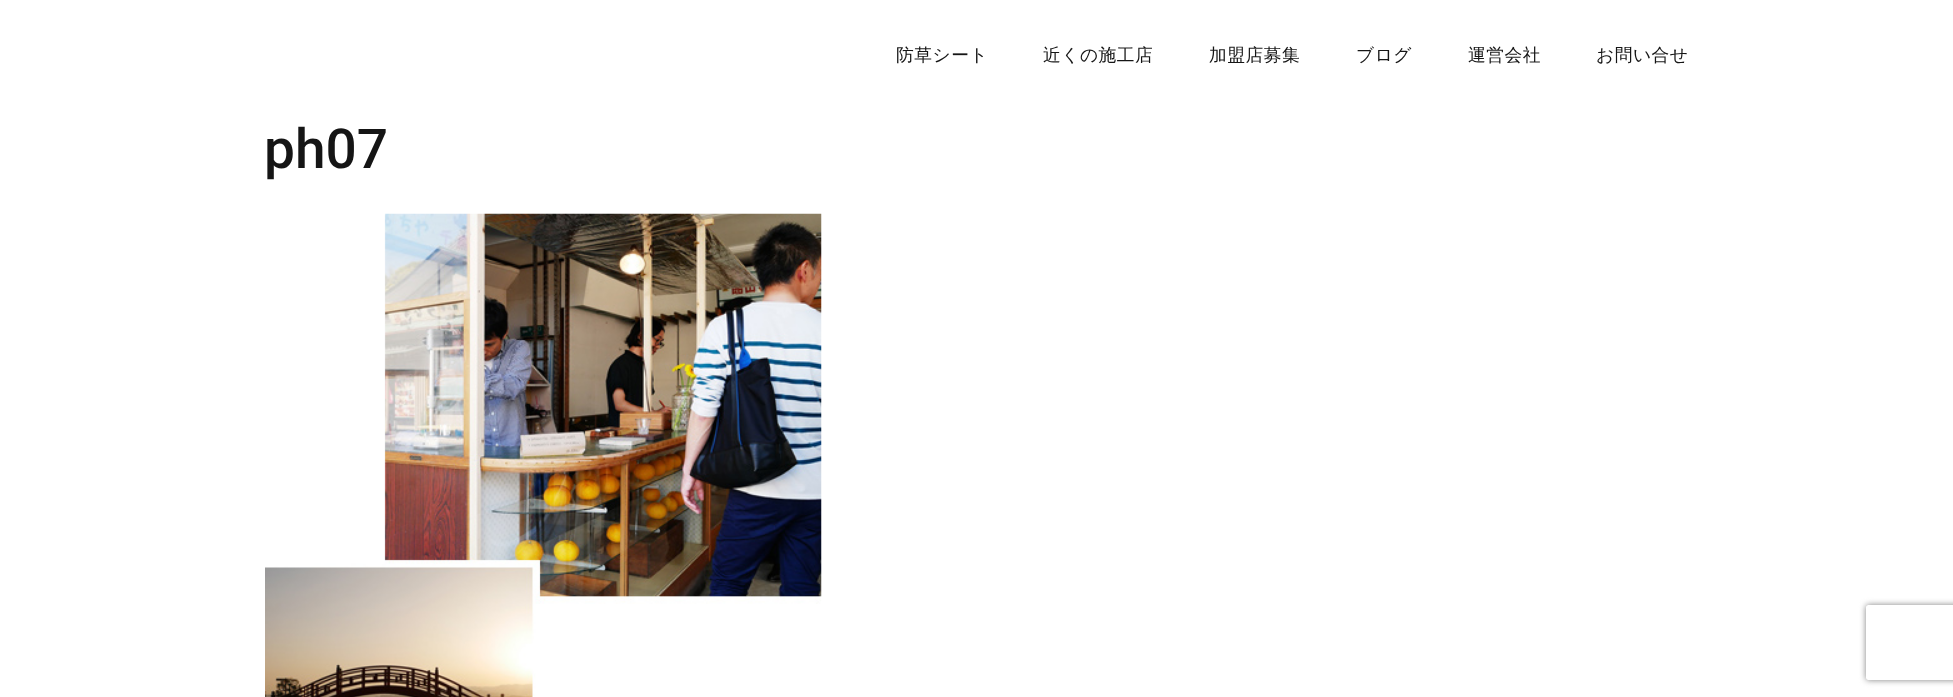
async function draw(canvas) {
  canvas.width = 1953;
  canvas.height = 697;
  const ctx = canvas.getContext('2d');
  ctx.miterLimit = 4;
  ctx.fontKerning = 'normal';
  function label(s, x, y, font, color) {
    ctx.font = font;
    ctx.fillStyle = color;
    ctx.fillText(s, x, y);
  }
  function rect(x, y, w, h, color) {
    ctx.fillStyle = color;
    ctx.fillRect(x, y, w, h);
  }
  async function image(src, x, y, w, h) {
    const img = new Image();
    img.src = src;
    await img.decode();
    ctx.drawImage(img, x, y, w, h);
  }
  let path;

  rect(0, 0, 1953, 697, '#fff');
  ctx.letterSpacing = '0.5px';
  label('防草シート', 896, 61, '500 17.75px WenQuanYi Zen Hei', '#151515');
  label('近くの施工店', 1043, 61, '500 17.75px WenQuanYi Zen Hei', '#151515');
  label('加盟店募集', 1209, 61, '500 17.75px WenQuanYi Zen Hei', '#151515');
  label('ブログ', 1356, 61, '500 17.75px WenQuanYi Zen Hei', '#151515');
  label('運営会社', 1468, 61, '500 17.75px WenQuanYi Zen Hei', '#151515');
  label('お問い合せ', 1596, 61, '500 17.75px WenQuanYi Zen Hei', '#151515');
  ctx.letterSpacing = '0px';
  label('ph07', 264, 168, '500 55px Roboto', '#151515');
  await image('assets/img1.png', 265, 213, 557, 484);
  ctx.save();
  path = new Path2D('M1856 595H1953V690H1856ZM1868.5 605H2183.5C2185 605 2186 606 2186 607.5V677.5C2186 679 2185 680 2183.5 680H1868.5C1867 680 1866 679 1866 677.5V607.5C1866 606 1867 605 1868.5 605Z');
  ctx.clip(path, 'evenodd');
  ctx.fillStyle = '#808080';
  ctx.filter = 'blur(3px)';
  ctx.beginPath();
  ctx.roundRect(1866, 605, 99, 75, 2.5);
  ctx.fill();
  ctx.filter = 'none';
  ctx.restore();
}

draw(document.querySelector('canvas'));
